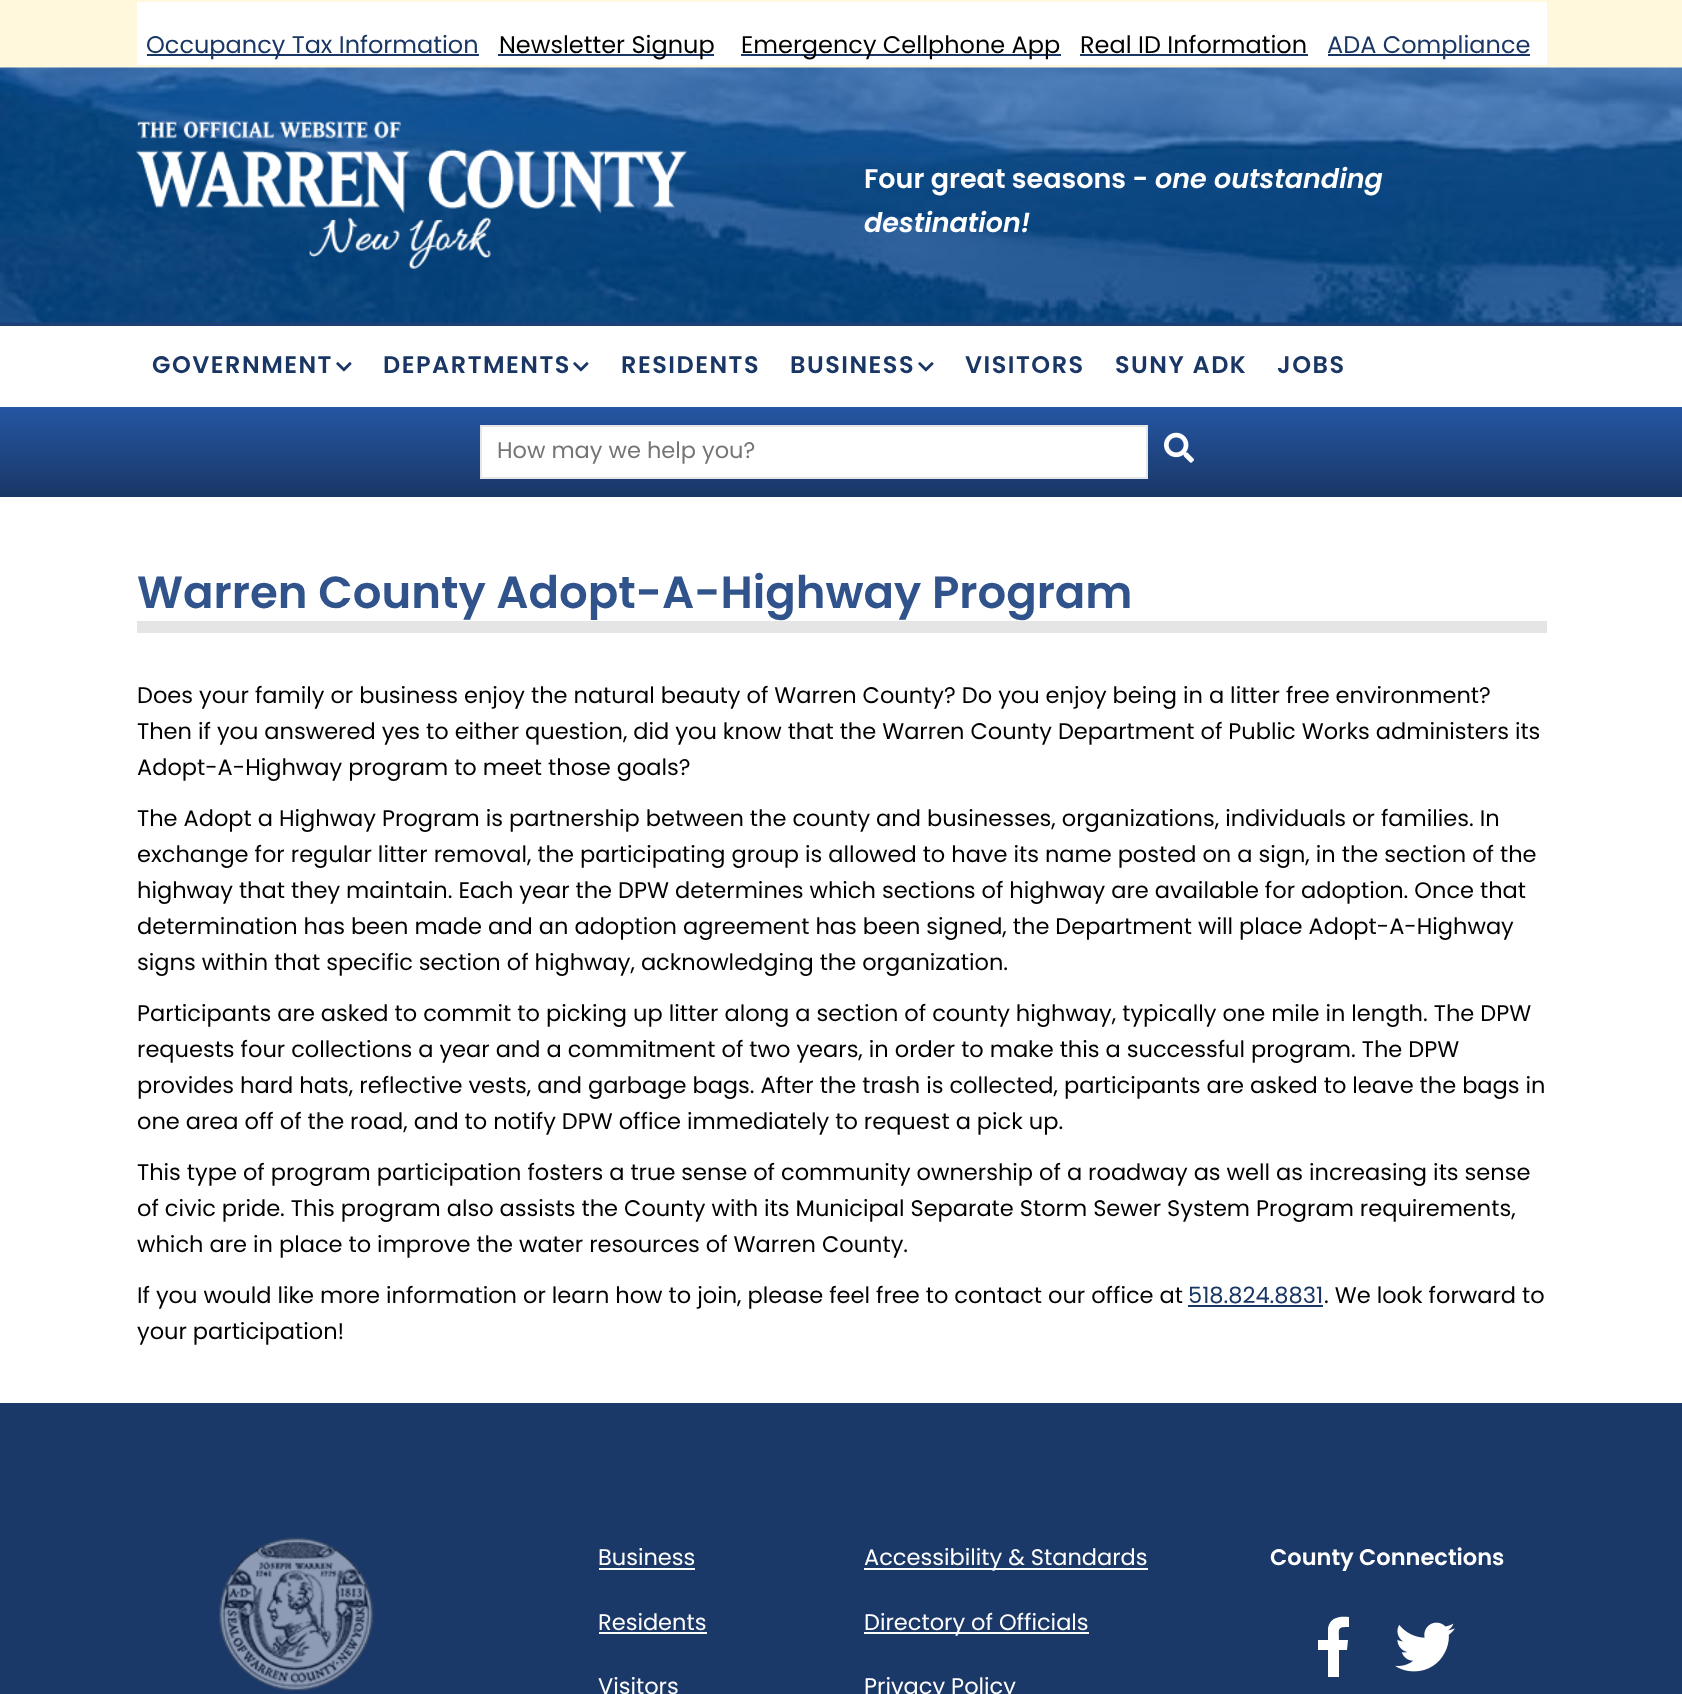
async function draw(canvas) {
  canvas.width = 1682;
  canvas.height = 1694;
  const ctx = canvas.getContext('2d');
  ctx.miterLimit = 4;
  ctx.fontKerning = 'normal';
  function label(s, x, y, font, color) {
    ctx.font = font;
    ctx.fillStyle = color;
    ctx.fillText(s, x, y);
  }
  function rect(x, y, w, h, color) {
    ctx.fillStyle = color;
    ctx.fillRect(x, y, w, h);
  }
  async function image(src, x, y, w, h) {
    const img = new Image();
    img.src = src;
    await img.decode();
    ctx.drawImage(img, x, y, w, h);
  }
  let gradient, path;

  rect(0, 0, 1682, 1694, '#fff');
  rect(0, 0, 1682, 68, '#fff8dc');
  rect(137, 2, 1410, 63, '#fff');
  rect(147, 54, 332, 2, '#193664');
  label('Occupancy Tax Information', 146, 53, '24px Poppins', '#193664');
  rect(498, 54, 216, 2, '#193664');
  label('Newsletter Signup', 499, 53, '24px Poppins', '#000');
  rect(741, 54, 320, 2, '#193664');
  label('Emergency Cellphone App', 741, 53, '24px Poppins', '#000');
  label('Real ID Information', 1080, 53, '24px Poppins', '#000');
  rect(1080, 54, 228, 2, '#193664');
  rect(1328, 54, 202, 2, '#193664');
  label('ADA Compliance', 1327, 53, '24px Poppins', '#193664');
  rect(0, 322, 1682, 4, '#1d4076');
  await image('assets/img1.png', 0, 67, 1682, 256);
  await image('assets/img2.png', 136, 121, 551, 148);
  label('Four great seasons -', 864, 188, '600 27px Poppins', '#fff');
  label('one outstanding', 1155, 188, 'italic 600 27px Poppins', '#fff');
  label('destination!', 864, 232, 'italic 600 27px Poppins', '#fff');
  ctx.letterSpacing = '1.5px';
  label('GOVERNMENT', 152, 373, '600 24px Poppins', '#193664');
  await image('assets/img3.png', 336, 362, 16, 10);
  label('DEPARTMENTS', 383, 373, '600 24px Poppins', '#193664');
  await image('assets/img3.png', 573, 362, 16, 10);
  label('RESIDENTS', 621, 373, '600 24px Poppins', '#193664');
  label('BUSINESS', 790, 373, '600 24px Poppins', '#193664');
  await image('assets/img3.png', 918, 362, 16, 10);
  label('VISITORS', 965, 373, '600 24px Poppins', '#193664');
  label('SUNY ADK', 1115, 373, '600 24px Poppins', '#193664');
  label('JOBS', 1277, 373, '600 24px Poppins', '#193664');
  gradient = ctx.createLinearGradient(842, 406, 842, 497);
  gradient.addColorStop(0, '#2556a4');
  gradient.addColorStop(1, '#193766');
  ctx.fillStyle = gradient;
  ctx.fillRect(0, 407, 1682, 90);
  ctx.fillStyle = '#fff';
  ctx.beginPath();
  ctx.rect(481, 426, 666, 52);
  ctx.fill();
  ctx.strokeStyle = '#e6e6e6';
  ctx.lineWidth = 2;
  ctx.stroke();
  ctx.letterSpacing = '0px';
  label('How may we help you?', 497, 458, '22.5px Poppins', '#757575');
  await image('assets/img4.png', 1164, 432, 30, 31);
  rect(137, 621, 1410, 12, '#e5e5e5');
  label('Warren County Adopt-A-Highway Program', 137, 608, '600 45px Poppins', '#30538c');
  label('Does your family or business enjoy the natural beauty of Warren County? Do you enjoy being in a litter free environment?', 137, 703, '22.5px Poppins', '#000');
  label('Then if you answered yes to either question, did you know that the Warren County Department of Public Works administers its', 137, 739, '22.5px Poppins', '#000');
  label('Adopt-A-Highway program to meet those goals?', 137, 775, '22.5px Poppins', '#000');
  label('The Adopt a Highway Program is partnership between the county and businesses, organizations, individuals or families. In', 137, 826, '22.5px Poppins', '#000');
  label('exchange for regular litter removal, the participating group is allowed to have its name posted on a sign, in the section of the', 137, 862, '22.5px Poppins', '#000');
  label('highway that they maintain. Each year the DPW determines which sections of highway are available for adoption. Once that', 137, 898, '22.5px Poppins', '#000');
  label('determination has been made and an adoption agreement has been signed, the Department will place Adopt-A-Highway', 137, 934, '22.5px Poppins', '#000');
  label('signs within that specific section of highway, acknowledging the organization.', 137, 970, '22.5px Poppins', '#000');
  label('Participants are asked to commit to picking up litter along a section of county highway, typically one mile in length. The DPW', 137, 1021, '22.5px Poppins', '#000');
  label('requests four collections a year and a commitment of two years, in order to make this a successful program. The DPW', 137, 1057, '22.5px Poppins', '#000');
  label('provides hard hats, reflective vests, and garbage bags. After the trash is collected, participants are asked to leave the bags in', 137, 1093, '22.5px Poppins', '#000');
  label('one area off of the road, and to notify DPW office immediately to request a pick up.', 137, 1129, '22.5px Poppins', '#000');
  label('This type of program participation fosters a true sense of community ownership of a roadway as well as increasing its sense', 137, 1180, '22.5px Poppins', '#000');
  label('of civic pride. This program also assists the County with its Municipal Separate Storm Sewer System Program requirements,', 137, 1216, '22.5px Poppins', '#000');
  label('which are in place to improve the water resources of Warren County.', 137, 1252, '22.5px Poppins', '#000');
  label('If you would like more information or learn how to join, please feel free to contact our office at', 137, 1303, '22.5px Poppins', '#000');
  label('518.824.8831', 1188, 1303, '22.5px Poppins', '#193664');
  rect(1188, 1305, 135, 2, '#193664');
  label('. We look forward to', 1324, 1303, '22.5px Poppins', '#000');
  label('your participation!', 137, 1339, '22.5px Poppins', '#000');
  rect(0, 1403, 1682, 291, '#1a3868');
  await image('assets/img5.png', 219, 1537, 155, 154);
  label('Business', 598, 1565, '22.5px Poppins', '#fff');
  rect(599, 1568, 96, 2, '#fff');
  label('Residents', 598, 1630, '22.5px Poppins', '#fff');
  rect(599, 1632, 108, 2, '#fff');
  label('Visitors', 598, 1694, '22.5px Poppins', '#fff');
  rect(864, 1568, 284, 2, '#fff');
  label('Accessibility & Standards', 864, 1565, '22.5px Poppins', '#fff');
  rect(864, 1632, 225, 2, '#fff');
  label('Directory of Officials', 864, 1630, '22.5px Poppins', '#fff');
  label('Privacy Policy', 864, 1694, '22.5px Poppins', '#fff');
  label('County Connections', 1270, 1565, '600 22.5px Poppins', '#fff');
  path = new Path2D('M1328 1677V1650H1318V1640H1328V1628C1330 1617 1340 1616 1349 1617V1627C1337 1627 1339 1628 1339 1640H1348L1347 1650H1339V1677Z');
  ctx.fill(path);
  await image('assets/img6.png', 1395, 1622, 60, 50);
}

draw(document.querySelector('canvas'));
